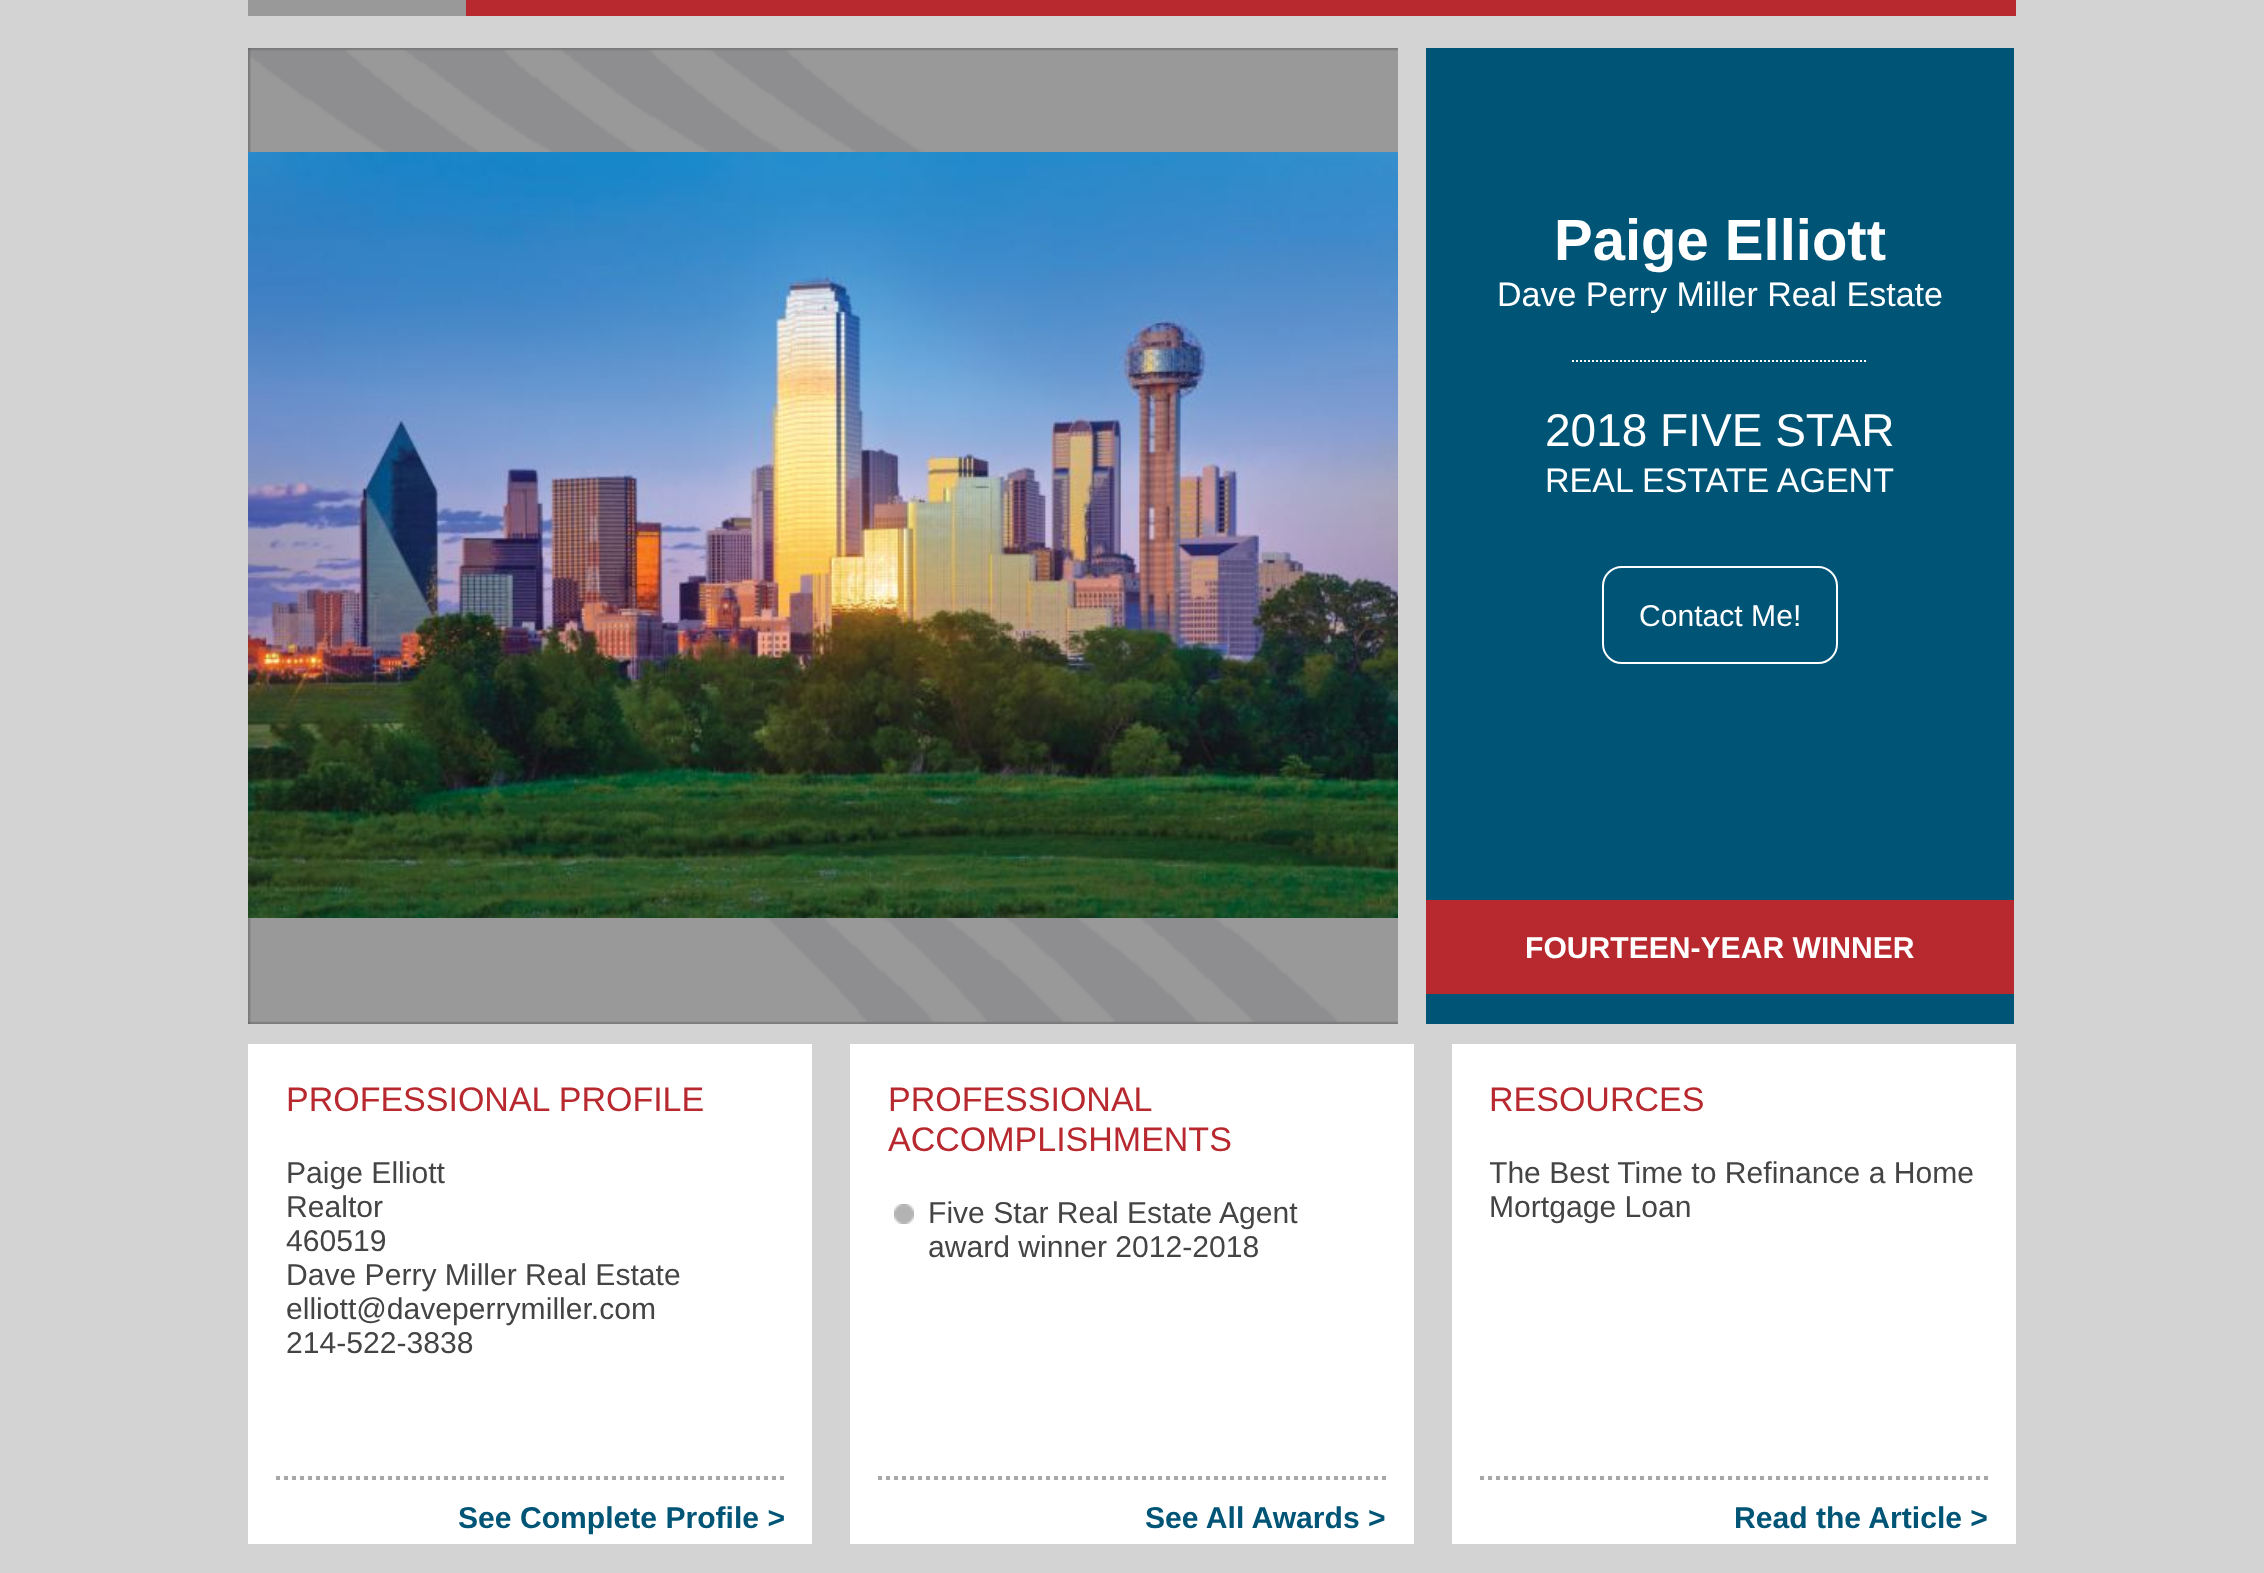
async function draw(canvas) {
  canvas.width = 2264;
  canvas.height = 1573;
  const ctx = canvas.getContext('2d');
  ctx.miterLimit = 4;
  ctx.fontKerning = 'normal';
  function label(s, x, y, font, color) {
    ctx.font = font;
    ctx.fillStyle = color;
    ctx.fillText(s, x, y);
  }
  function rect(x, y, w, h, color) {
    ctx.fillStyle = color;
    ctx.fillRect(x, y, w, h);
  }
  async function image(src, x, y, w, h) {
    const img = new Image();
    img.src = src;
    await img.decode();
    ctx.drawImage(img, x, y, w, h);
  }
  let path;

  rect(0, 0, 2264, 1573, '#d3d3d3');
  rect(466, 0, 1550, 16, '#b8292f');
  rect(248, 0, 218, 16, '#999');
  await image('assets/img1.png', 248, 48, 1150, 976);
  await image('assets/img2.png', 248, 152, 1150, 766);
  rect(1426, 48, 588, 976, '#057');
  label('Paige Elliott', 1554, 260, 'bold 58px Liberation Sans', '#fff');
  label('Dave Perry Miller Real Estate', 1497, 306, '34px Liberation Sans', '#fff');
  path = new Path2D('M1572 361H1866');
  ctx.strokeStyle = '#fff';
  ctx.lineWidth = 2;
  ctx.setLineDash([2, 2]);
  ctx.stroke(path);
  label('2018 FIVE STAR', 1545, 446, '46px Liberation Sans', '#fff');
  label('REAL ESTATE AGENT', 1545, 492, '34px Liberation Sans', '#fff');
  ctx.beginPath();
  ctx.roundRect(1603, 567, 234, 96, 19);
  ctx.setLineDash([]);
  ctx.stroke();
  label('Contact Me!', 1639, 626, '30.1px Liberation Sans', '#fff');
  rect(1426, 900, 588, 94, '#b8292f');
  label('FOURTEEN-YEAR WINNER', 1525, 958, 'bold 30.1px Liberation Sans', '#fff');
  rect(248, 1044, 564, 500, '#fff');
  label('PROFESSIONAL PROFILE', 286, 1111, '34px Liberation Sans', '#b8292f');
  label('Paige Elliott', 286, 1183, '30.1px Liberation Sans', '#444');
  label('Realtor', 286, 1217, '30.1px Liberation Sans', '#444');
  label('460519', 286, 1251, '30.1px Liberation Sans', '#444');
  label('Dave Perry Miller Real Estate', 286, 1285, '30.1px Liberation Sans', '#444');
  label('elliott@daveperrymiller.com', 286, 1319, '30.1px Liberation Sans', '#444');
  label('214-522-3838', 286, 1353, '30.1px Liberation Sans', '#444');
  path = new Path2D('M276 1478H784');
  ctx.strokeStyle = '#a8a8a8';
  ctx.lineWidth = 4;
  ctx.setLineDash([4, 4]);
  ctx.stroke(path);
  label('See Complete Profile >', 458, 1528, 'bold 30.1px Liberation Sans', '#057');
  rect(850, 1044, 564, 500, '#fff');
  label('PROFESSIONAL', 888, 1111, '34px Liberation Sans', '#b8292f');
  label('ACCOMPLISHMENTS', 888, 1151, '34px Liberation Sans', '#b8292f');
  await image('assets/img3.png', 894, 1204, 20, 20);
  label('Five Star Real Estate Agent', 928, 1223, '30.1px Liberation Sans', '#444');
  label('award winner 2012-2018', 928, 1257, '30.1px Liberation Sans', '#444');
  path = new Path2D('M878 1478H1386');
  ctx.stroke(path);
  label('See All Awards >', 1145, 1528, 'bold 30.1px Liberation Sans', '#057');
  rect(1452, 1044, 564, 500, '#fff');
  label('RESOURCES', 1489, 1111, '34px Liberation Sans', '#b8292f');
  ctx.save();
  ctx.beginPath();
  ctx.rect(1490, 1156, 488, 320);
  ctx.clip();
  label('The Best Time to Refinance a Home', 1489, 1183, '30.1px Liberation Sans', '#444');
  ctx.restore();
  label('Mortgage Loan', 1489, 1217, '30.1px Liberation Sans', '#444');
  path = new Path2D('M1480 1478H1988');
  ctx.stroke(path);
  label('Read the Article >', 1734, 1528, 'bold 30.1px Liberation Sans', '#057');
}

draw(document.querySelector('canvas'));
